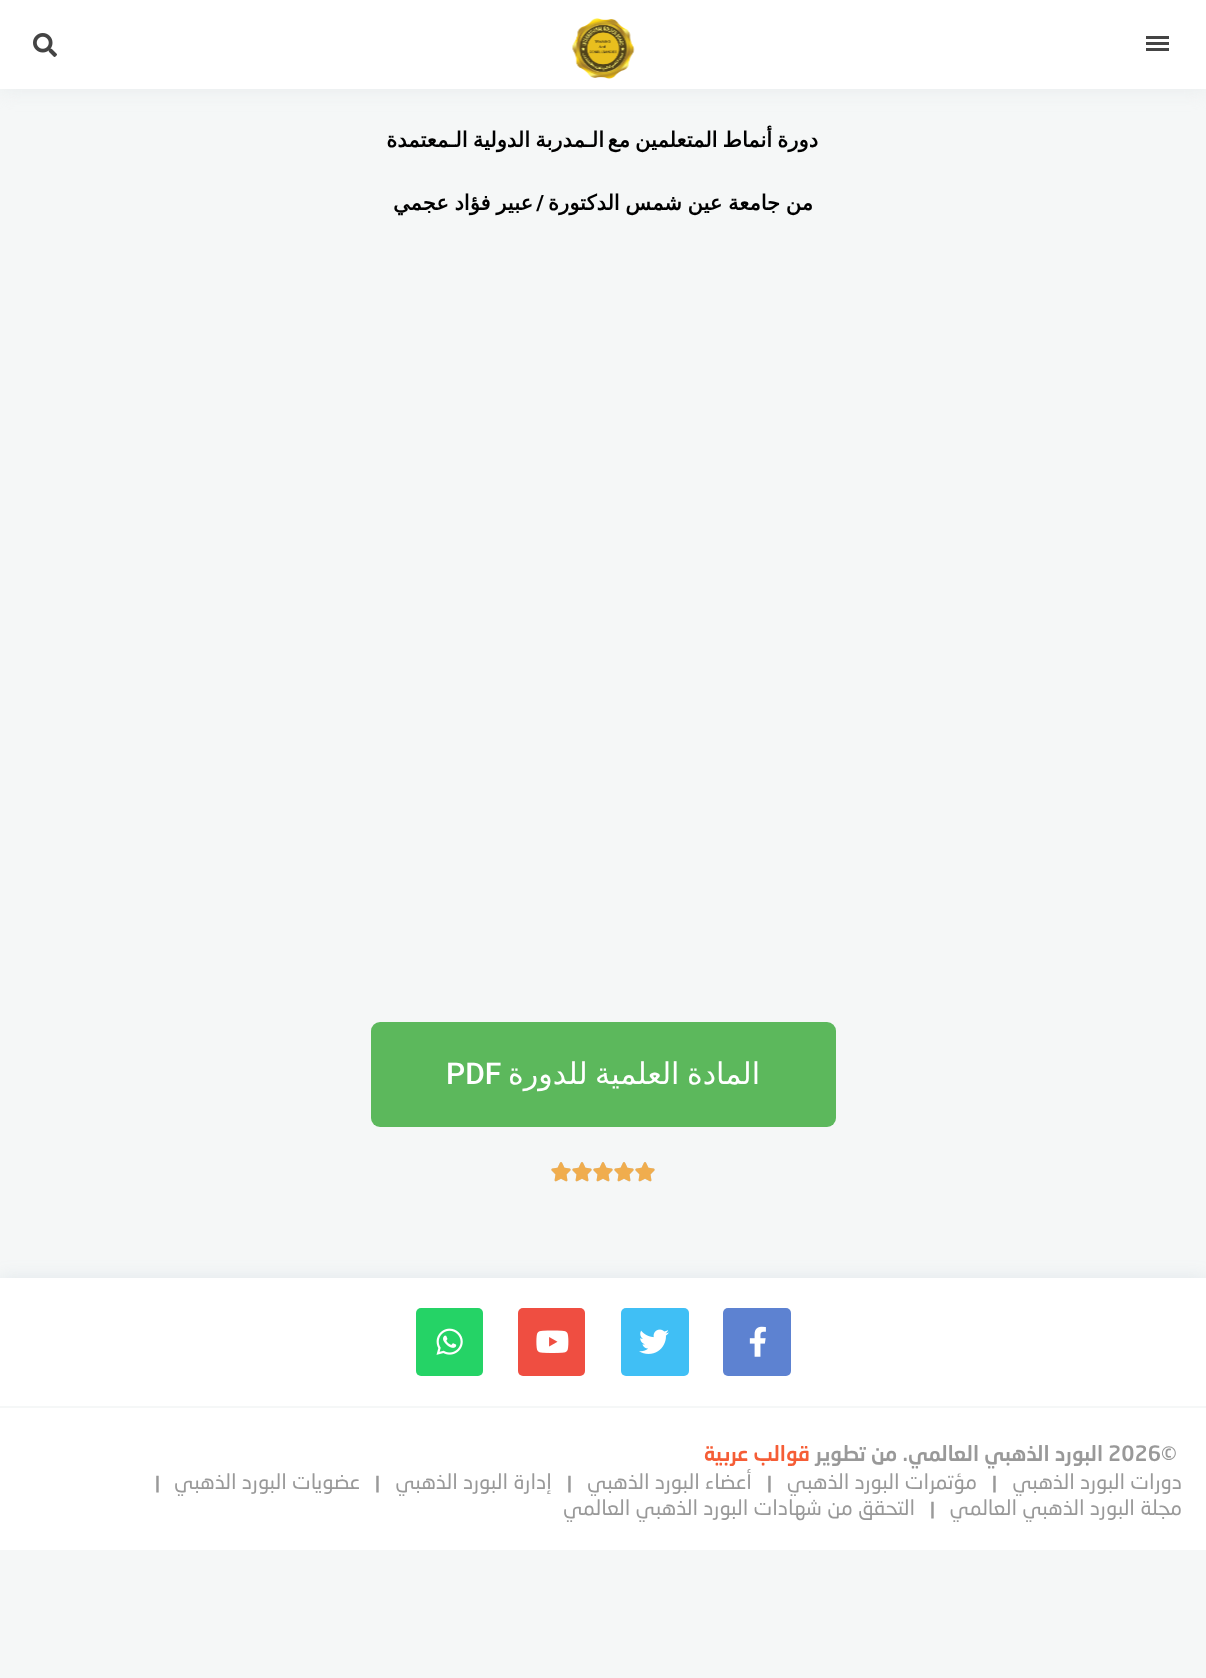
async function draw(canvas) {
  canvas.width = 1206;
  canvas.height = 1678;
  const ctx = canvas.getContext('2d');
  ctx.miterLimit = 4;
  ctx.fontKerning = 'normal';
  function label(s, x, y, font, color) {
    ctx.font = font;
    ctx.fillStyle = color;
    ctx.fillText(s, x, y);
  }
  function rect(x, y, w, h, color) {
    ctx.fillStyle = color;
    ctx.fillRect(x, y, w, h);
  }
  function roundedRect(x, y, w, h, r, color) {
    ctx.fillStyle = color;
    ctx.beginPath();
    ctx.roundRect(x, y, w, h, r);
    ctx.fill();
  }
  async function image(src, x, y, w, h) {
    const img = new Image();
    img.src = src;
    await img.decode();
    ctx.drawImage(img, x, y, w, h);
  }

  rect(0, 0, 1206, 1678, '#f5f7f7');
  ctx.fillStyle = '#e8eced';
  ctx.filter = 'blur(9px)';
  ctx.beginPath();
  ctx.rect(0, 2, 1206, 88);
  ctx.fill();
  ctx.filter = 'none';
  rect(0, 0, 1206, 89, '#fff');
  rect(1146, 36, 23, 3, '#444');
  rect(1146, 42, 23, 3, '#444');
  rect(1146, 48, 23, 3, '#444');
  await image('assets/img1.png', 572, 18, 63, 61);
  await image('assets/img2.png', 33, 33, 24, 24);
  ctx.wordSpacing = '-1.5px';
  ctx.direction = 'rtl';
  label('دورة أنماط المتعلمين مع', 818, 147, 'bold 21px DejaVu Sans', '#000');
  label('الـمدربة الدولية الـمعتمدة', 604, 147, 'bold 21px DejaVu Sans', '#000');
  ctx.wordSpacing = '-1px';
  label('من جامعة عين شمس الدكتورة', 813, 210, 'bold 21px DejaVu Sans', '#000');
  ctx.wordSpacing = '0px';
  label('/', 544, 210, 'bold 21px Roboto', '#000');
  ctx.wordSpacing = '-1px';
  label('عبير فؤاد عجمي', 533, 210, 'bold 21px DejaVu Sans', '#000');
  roundedRect(371, 1022, 465, 105, 9, '#5cb85c');
  ctx.wordSpacing = '-2px';
  label('المادة العلمية للدورة', 760, 1084, '30px DejaVu Sans', '#fff');
  ctx.wordSpacing = '0px';
  ctx.direction = 'ltr';
  label('PDF', 446, 1084, '500 30px Roboto', '#fff');
  await image('assets/img3.png', 635, 1162, 20, 20);
  await image('assets/img4.png', 635, 1162, 20, 20);
  await image('assets/img3.png', 614, 1162, 20, 20);
  await image('assets/img4.png', 614, 1162, 20, 20);
  await image('assets/img3.png', 593, 1162, 20, 20);
  await image('assets/img4.png', 593, 1162, 20, 20);
  await image('assets/img3.png', 572, 1162, 20, 20);
  await image('assets/img4.png', 572, 1162, 20, 20);
  await image('assets/img3.png', 551, 1162, 20, 20);
  await image('assets/img4.png', 551, 1162, 20, 20);
  ctx.save();
  ctx.beginPath();
  ctx.rect(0, 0, 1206, 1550);
  ctx.clip();
  ctx.fillStyle = '#6e8fab26';
  ctx.filter = 'blur(9px)';
  ctx.beginPath();
  ctx.rect(0, 1278, 1206, 272);
  ctx.fill();
  ctx.filter = 'none';
  ctx.restore();
  rect(0, 1278, 1206, 272, '#fff');
  rect(0, 1406, 1206, 2, '#f5f7f7');
  roundedRect(723, 1308, 68, 68, 5, '#5d82d1');
  await image('assets/img5.png', 749, 1326, 17, 31);
  roundedRect(621, 1308, 68, 68, 5, '#40bff5');
  await image('assets/img6.png', 639, 1329, 30, 25);
  roundedRect(518, 1308, 67, 68, 5, '#ef4e41');
  await image('assets/img7.png', 536, 1330, 33, 23);
  roundedRect(416, 1308, 67, 68, 5, '#25d366');
  await image('assets/img8.png', 436, 1328, 27, 27);
  label('2026©', 1108, 1461, '500 21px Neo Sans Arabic', '#999');
  ctx.direction = 'rtl';
  label('البورد الذهبي العالمي. من تطوير', 1103, 1461, '500 21px Neo Sans Arabic', '#999');
  label('قوالب عربية', 810, 1461, '500 21px Neo Sans Arabic', '#f55d36');
  label('دورات البورد الذهبي', 1182, 1489, '21px Neo Sans Arabic', '#999');
  ctx.direction = 'ltr';
  label('|', 992, 1489, '500 18px Neo Sans Arabic', '#999');
  ctx.direction = 'rtl';
  label('مؤتمرات البورد الذهبي', 977, 1489, '21px Neo Sans Arabic', '#999');
  ctx.direction = 'ltr';
  label('|', 767, 1489, '500 18px Neo Sans Arabic', '#999');
  ctx.direction = 'rtl';
  label('أعضاء البورد الذهبي', 752, 1489, '21px Neo Sans Arabic', '#999');
  ctx.direction = 'ltr';
  label('|', 567, 1489, '500 18px Neo Sans Arabic', '#999');
  ctx.direction = 'rtl';
  label('إدارة البورد الذهبي', 552, 1489, '21px Neo Sans Arabic', '#999');
  ctx.direction = 'ltr';
  label('|', 375, 1489, '500 18px Neo Sans Arabic', '#999');
  ctx.direction = 'rtl';
  label('عضويات البورد الذهبي', 360, 1489, '21px Neo Sans Arabic', '#999');
  ctx.direction = 'ltr';
  label('|', 155, 1489, '500 18px Neo Sans Arabic', '#999');
  ctx.direction = 'rtl';
  label('مجلة البورد الذهبي العالمي', 1182, 1515, '21px Neo Sans Arabic', '#999');
  ctx.direction = 'ltr';
  label('|', 930, 1515, '500 18px Neo Sans Arabic', '#999');
  ctx.direction = 'rtl';
  label('التحقق من شهادات البورد الذهبي العالمي', 915, 1515, '21px Neo Sans Arabic', '#999');
}

draw(document.querySelector('canvas'));
